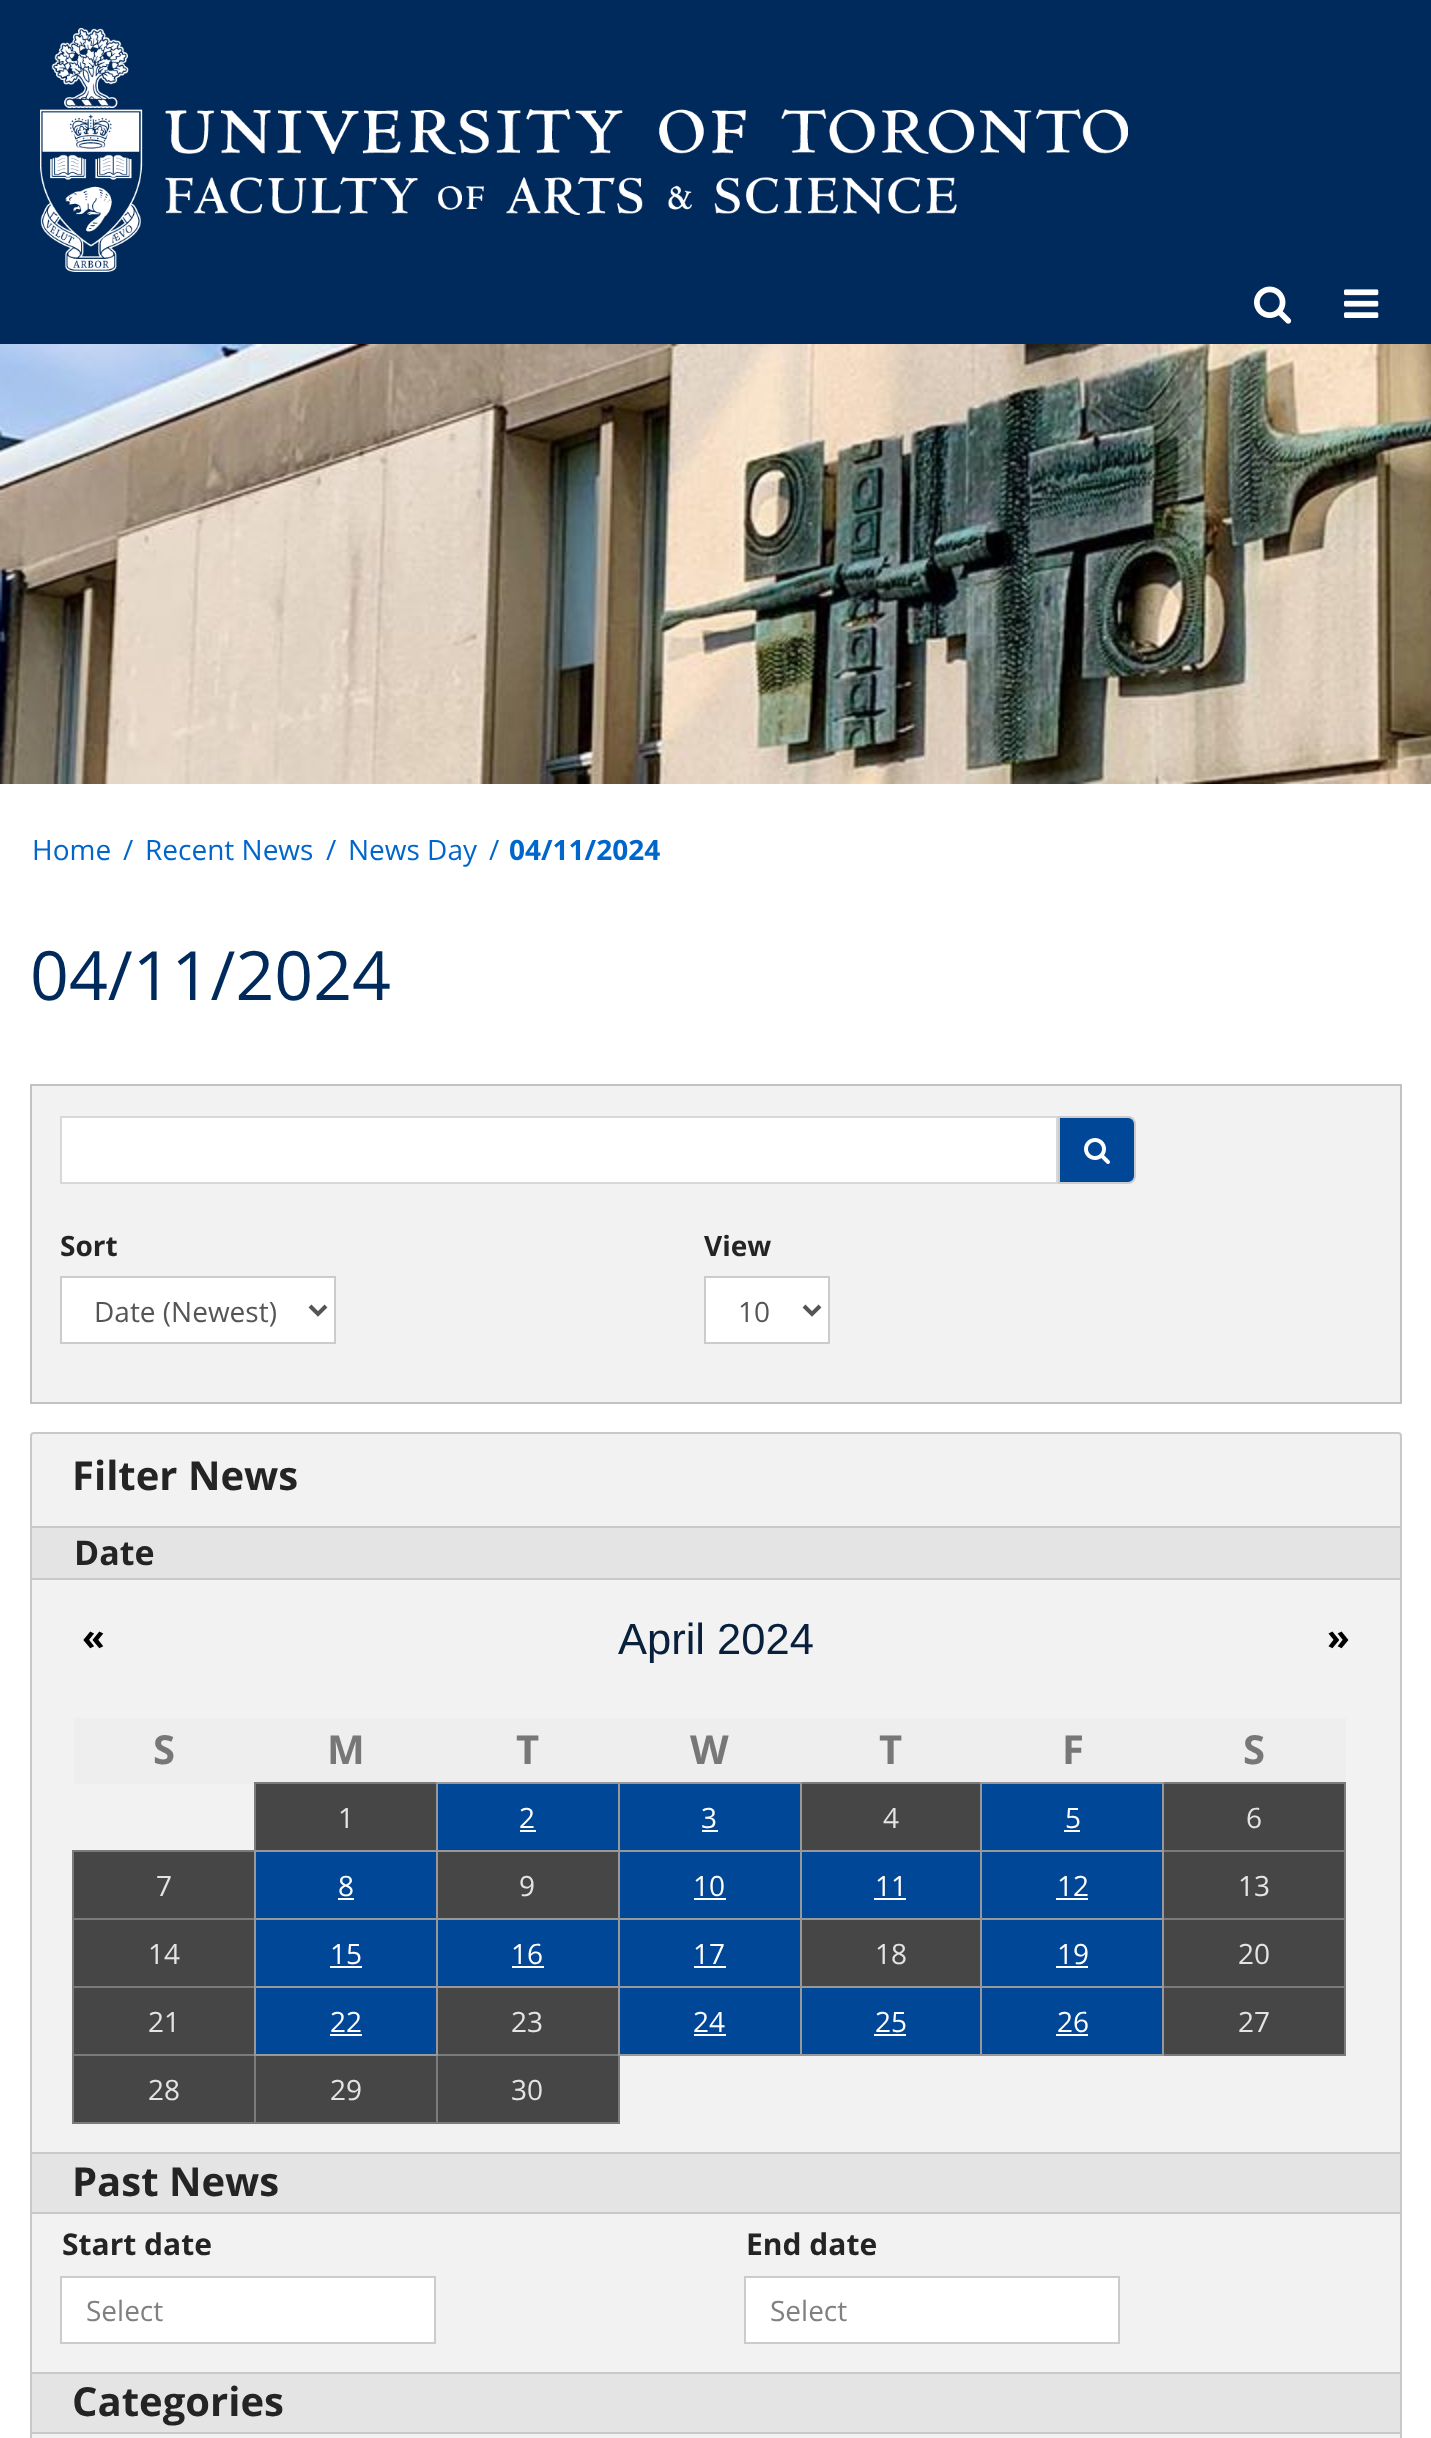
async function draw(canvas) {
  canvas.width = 1431;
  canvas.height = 2438;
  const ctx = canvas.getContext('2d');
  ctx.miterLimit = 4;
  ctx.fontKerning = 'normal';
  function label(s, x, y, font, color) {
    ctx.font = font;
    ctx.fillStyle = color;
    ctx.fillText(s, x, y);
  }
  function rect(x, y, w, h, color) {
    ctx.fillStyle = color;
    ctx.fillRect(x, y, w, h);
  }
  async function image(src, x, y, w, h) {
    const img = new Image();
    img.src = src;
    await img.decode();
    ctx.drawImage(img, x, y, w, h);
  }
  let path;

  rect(0, 0, 1431, 2438, '#fff');
  rect(0, 0, 1431, 344, '#002a5c');
  await image('assets/img1.png', 40, 28, 1088, 244);
  await image('assets/img2.png', 1254, 286, 38, 38);
  await image('assets/img3.png', 1344, 289, 35, 29);
  await image('assets/img4.png', 0, 344, 1431, 440);
  label('Home', 32, 860, '28px Open Sans', '#06c');
  label('/', 123, 860, '28px Open Sans', '#06c');
  label('Recent News', 145, 860, '28px Open Sans', '#06c');
  label('/', 326, 860, '28px Open Sans', '#06c');
  label('News Day', 348, 860, '28px Open Sans', '#06c');
  label('/', 489, 860, '28px Open Sans', '#06c');
  label('04/11/2024', 509, 860, 'bold 28px Open Sans', '#06c');
  label('04/11/2024', 30, 1000, '68px Open Sans', '#002a5c');
  ctx.fillStyle = '#f2f2f2';
  ctx.beginPath();
  ctx.rect(31, 1085, 1370, 318);
  ctx.fill();
  ctx.strokeStyle = '#c2c2c2';
  ctx.lineWidth = 2;
  ctx.stroke();
  ctx.fillStyle = '#fff';
  ctx.beginPath();
  ctx.rect(61, 1117, 996, 66);
  ctx.fill();
  ctx.strokeStyle = '#d8d8d8';
  ctx.stroke();
  ctx.fillStyle = '#004797';
  ctx.beginPath();
  ctx.roundRect(1059, 1117, 76, 66, [0, 7, 7, 0]);
  ctx.fill();
  ctx.strokeStyle = '#ccc';
  ctx.stroke();
  await image('assets/img5.png', 1084, 1138, 26, 26);
  label('Sort', 60, 1256, 'bold 28px Open Sans', '#242424');
  ctx.fillStyle = '#fff';
  ctx.beginPath();
  ctx.rect(61, 1277, 274, 66);
  ctx.fill();
  ctx.stroke();
  path = new Path2D('M310 1306L318 1314L326 1306');
  ctx.strokeStyle = '#555';
  ctx.lineWidth = 4;
  ctx.stroke(path);
  label('Date (Newest)', 94, 1322, '28px Open Sans', '#555');
  label('View', 704, 1256, 'bold 28px Open Sans', '#242424');
  ctx.fillStyle = '#fff';
  ctx.beginPath();
  ctx.rect(705, 1277, 124, 66);
  ctx.fill();
  ctx.strokeStyle = '#ccc';
  ctx.lineWidth = 2;
  ctx.stroke();
  path = new Path2D('M804 1306L812 1314L820 1306');
  ctx.strokeStyle = '#555';
  ctx.lineWidth = 4;
  ctx.stroke(path);
  label('10', 738, 1322, '28px Open Sans', '#555');
  ctx.fillStyle = '#f2f2f2';
  ctx.beginPath();
  ctx.roundRect(31, 1433, 1370, 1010, 3);
  ctx.fill();
  ctx.strokeStyle = '#c9c9c9';
  ctx.lineWidth = 2;
  ctx.stroke();
  label('Filter News', 72, 1490, 'bold 40px Open Sans', '#242424');
  rect(32, 1528, 1368, 50, '#e4e4e4');
  rect(32, 1526, 1368, 2, '#c9c9c9');
  rect(32, 1578, 1368, 2, '#c9c9c9');
  label('Date', 74, 1565, 'bold 34px Open Sans', '#242424');
  label('April 2024', 618, 1654, '43.5px Liberation Sans', '#09203d');
  label('«', 82, 1650, 'bold 37px Open Sans', '#000');
  label('»', 1327, 1650, 'bold 37px Open Sans', '#000');
  rect(74, 1718, 180, 66, '#eee');
  label('S', 153, 1764, 'bold 40px Open Sans', '#777');
  rect(254, 1718, 1092, 64, '#eee');
  label('M', 327, 1764, 'bold 40px Open Sans', '#777');
  label('T', 516, 1764, 'bold 40px Open Sans', '#777');
  label('W', 690, 1764, 'bold 40px Open Sans', '#777');
  label('T', 879, 1764, 'bold 40px Open Sans', '#777');
  label('F', 1062, 1764, 'bold 40px Open Sans', '#777');
  label('S', 1243, 1764, 'bold 40px Open Sans', '#777');
  rect(256, 1784, 180, 66, '#464646');
  rect(254, 1782, 184, 2, '#7b7b7b');
  rect(72, 1850, 184, 2, '#7b7b7b');
  rect(254, 1782, 2, 70, '#7b7b7b');
  label('1', 338, 1828, '28px Open Sans', '#e4e4e4');
  rect(438, 1784, 180, 66, '#004797');
  rect(520, 1830, 16, 2, '#fff');
  ctx.strokeStyle = '#989898';
  ctx.strokeRect(437, 1783, 182, 68);
  label('2', 519, 1828, '28px Open Sans', '#fff');
  rect(620, 1784, 180, 66, '#004797');
  rect(702, 1830, 16, 2, '#fff');
  rect(800, 1782, 182, 2, '#7b7b7b');
  ctx.strokeRect(619, 1783, 182, 68);
  label('3', 701, 1828, '28px Open Sans', '#fff');
  rect(802, 1784, 178, 66, '#464646');
  label('4', 883, 1828, '28px Open Sans', '#e4e4e4');
  rect(982, 1784, 180, 66, '#004797');
  rect(1064, 1830, 16, 2, '#fff');
  rect(1162, 1782, 184, 2, '#7b7b7b');
  rect(1162, 1850, 184, 2, '#7b7b7b');
  ctx.strokeRect(981, 1783, 182, 68);
  label('5', 1065, 1828, '28px Open Sans', '#fff');
  rect(1164, 1784, 180, 66, '#464646');
  rect(1162, 1918, 184, 2, '#7b7b7b');
  rect(1162, 1986, 184, 2, '#7b7b7b');
  rect(1344, 1986, 2, 70, '#7b7b7b');
  rect(1344, 1918, 2, 70, '#7b7b7b');
  rect(1344, 1850, 2, 70, '#7b7b7b');
  rect(1344, 1782, 2, 70, '#7b7b7b');
  label('6', 1246, 1828, '28px Open Sans', '#e4e4e4');
  rect(74, 1852, 180, 66, '#464646');
  rect(72, 1918, 184, 2, '#7b7b7b');
  rect(72, 1986, 184, 2, '#7b7b7b');
  rect(436, 2054, 184, 2, '#7b7b7b');
  rect(618, 2054, 2, 70, '#7b7b7b');
  rect(436, 2122, 184, 2, '#7b7b7b');
  rect(436, 2054, 2, 70, '#7b7b7b');
  rect(254, 2122, 184, 2, '#7b7b7b');
  rect(254, 2054, 2, 70, '#7b7b7b');
  rect(72, 2054, 184, 2, '#7b7b7b');
  rect(72, 2122, 184, 2, '#7b7b7b');
  rect(72, 2054, 2, 70, '#7b7b7b');
  rect(72, 1986, 2, 70, '#7b7b7b');
  rect(72, 1918, 2, 70, '#7b7b7b');
  rect(72, 1850, 2, 70, '#7b7b7b');
  label('7', 156, 1896, '28px Open Sans', '#e4e4e4');
  rect(256, 1852, 180, 66, '#004797');
  rect(338, 1898, 16, 2, '#fff');
  ctx.strokeRect(255, 1851, 182, 68);
  label('8', 338, 1896, '28px Open Sans', '#fff');
  rect(438, 1852, 180, 66, '#464646');
  label('9', 519, 1896, '28px Open Sans', '#e4e4e4');
  rect(620, 1852, 180, 66, '#004797');
  rect(694, 1898, 32, 2, '#fff');
  ctx.strokeRect(619, 1851, 182, 68);
  label('10', 693, 1896, '28px Open Sans', '#fff');
  rect(802, 1852, 178, 66, '#004797');
  rect(874, 1898, 32, 2, '#fff');
  ctx.strokeRect(801, 1851, 180, 68);
  label('11', 875, 1896, '28px Open Sans', '#fff');
  rect(982, 1852, 180, 66, '#004797');
  rect(1056, 1898, 32, 2, '#fff');
  ctx.strokeRect(981, 1851, 182, 68);
  label('12', 1057, 1896, '28px Open Sans', '#fff');
  rect(1164, 1852, 180, 66, '#464646');
  label('13', 1238, 1896, '28px Open Sans', '#e4e4e4');
  rect(74, 1920, 180, 66, '#464646');
  label('14', 148, 1964, '28px Open Sans', '#e4e4e4');
  rect(256, 1920, 180, 66, '#004797');
  rect(330, 1966, 32, 2, '#fff');
  ctx.strokeRect(255, 1919, 182, 68);
  label('15', 330, 1964, '28px Open Sans', '#fff');
  rect(438, 1920, 180, 66, '#004797');
  rect(512, 1966, 32, 2, '#fff');
  ctx.strokeRect(437, 1919, 182, 68);
  label('16', 511, 1964, '28px Open Sans', '#fff');
  rect(620, 1920, 180, 66, '#004797');
  rect(694, 1966, 32, 2, '#fff');
  ctx.strokeRect(619, 1919, 182, 68);
  label('17', 693, 1964, '28px Open Sans', '#fff');
  rect(802, 1920, 178, 66, '#464646');
  label('18', 875, 1964, '28px Open Sans', '#e4e4e4');
  rect(982, 1920, 180, 66, '#004797');
  rect(1056, 1966, 32, 2, '#fff');
  ctx.strokeRect(981, 1919, 182, 68);
  label('19', 1057, 1964, '28px Open Sans', '#fff');
  rect(1164, 1920, 180, 66, '#464646');
  label('20', 1238, 1964, '28px Open Sans', '#e4e4e4');
  rect(74, 1988, 180, 66, '#464646');
  label('21', 148, 2032, '28px Open Sans', '#e4e4e4');
  rect(256, 1988, 180, 66, '#004797');
  rect(330, 2034, 32, 2, '#fff');
  ctx.strokeRect(255, 1987, 182, 68);
  label('22', 330, 2032, '28px Open Sans', '#fff');
  rect(438, 1988, 180, 66, '#464646');
  label('23', 511, 2032, '28px Open Sans', '#e4e4e4');
  rect(620, 1988, 180, 66, '#004797');
  rect(694, 2034, 32, 2, '#fff');
  ctx.strokeRect(619, 1987, 182, 68);
  label('24', 693, 2032, '28px Open Sans', '#fff');
  rect(802, 1988, 178, 66, '#004797');
  rect(874, 2034, 32, 2, '#fff');
  ctx.strokeRect(801, 1987, 180, 68);
  label('25', 875, 2032, '28px Open Sans', '#fff');
  rect(982, 1988, 180, 66, '#004797');
  rect(1056, 2034, 32, 2, '#fff');
  rect(1162, 2054, 184, 2, '#7b7b7b');
  ctx.strokeRect(981, 1987, 182, 68);
  label('26', 1057, 2032, '28px Open Sans', '#fff');
  rect(1164, 1988, 180, 66, '#464646');
  label('27', 1238, 2032, '28px Open Sans', '#e4e4e4');
  rect(74, 2056, 180, 66, '#464646');
  label('28', 148, 2100, '28px Open Sans', '#e4e4e4');
  rect(256, 2056, 180, 66, '#464646');
  label('29', 330, 2100, '28px Open Sans', '#e4e4e4');
  rect(438, 2056, 180, 66, '#464646');
  label('30', 511, 2100, '28px Open Sans', '#e4e4e4');
  rect(32, 2154, 1368, 58, '#e4e4e4');
  rect(32, 2152, 1368, 2, '#c9c9c9');
  rect(32, 2212, 1368, 2, '#c9c9c9');
  label('Past News', 72, 2196, 'bold 40px Open Sans', '#242424');
  label('Start date', 62, 2255, 'bold 30px Open Sans', '#242424');
  ctx.fillStyle = '#fff';
  ctx.beginPath();
  ctx.rect(61, 2277, 374, 66);
  ctx.fill();
  ctx.strokeStyle = '#ccc';
  ctx.stroke();
  label('Select', 86, 2321, '28px Open Sans', '#808080');
  label('End date', 746, 2255, 'bold 30px Open Sans', '#242424');
  ctx.fillStyle = '#fff';
  ctx.beginPath();
  ctx.rect(745, 2277, 374, 66);
  ctx.fill();
  ctx.stroke();
  label('Select', 770, 2321, '28px Open Sans', '#808080');
  rect(32, 2374, 1368, 58, '#e4e4e4');
  rect(32, 2372, 1368, 2, '#c9c9c9');
  rect(32, 2432, 1368, 2, '#c9c9c9');
  label('Categories', 72, 2416, 'bold 40px Open Sans', '#242424');
}

draw(document.querySelector('canvas'));
